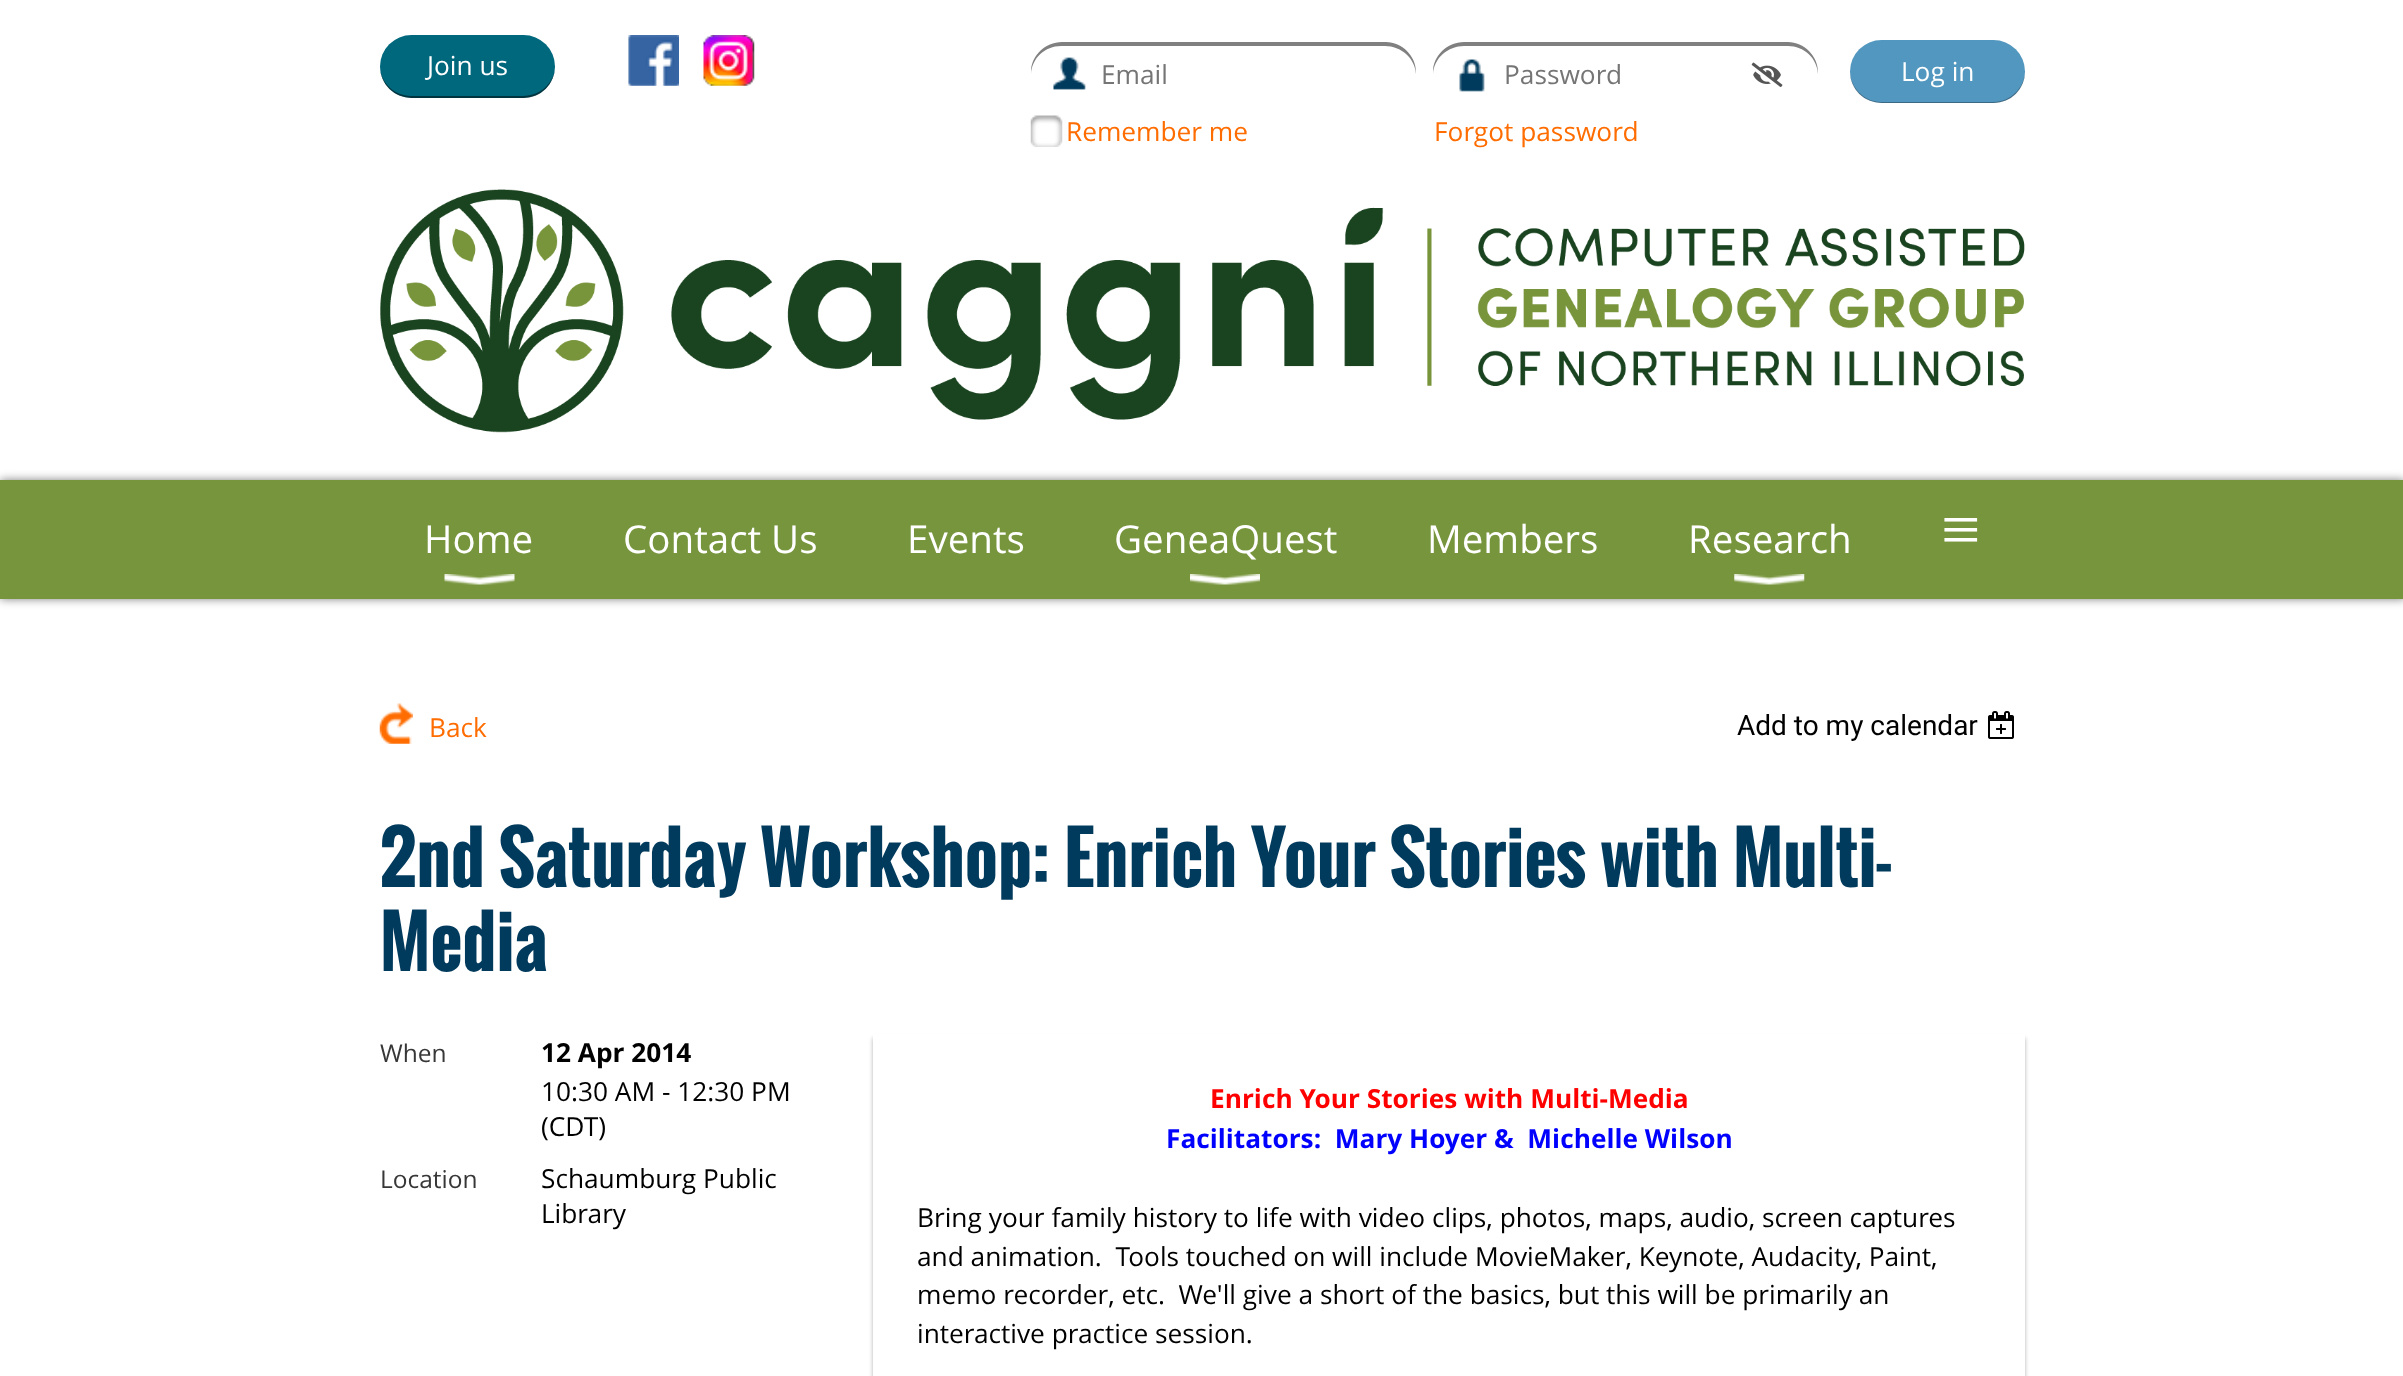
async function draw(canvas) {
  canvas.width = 2403;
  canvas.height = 1376;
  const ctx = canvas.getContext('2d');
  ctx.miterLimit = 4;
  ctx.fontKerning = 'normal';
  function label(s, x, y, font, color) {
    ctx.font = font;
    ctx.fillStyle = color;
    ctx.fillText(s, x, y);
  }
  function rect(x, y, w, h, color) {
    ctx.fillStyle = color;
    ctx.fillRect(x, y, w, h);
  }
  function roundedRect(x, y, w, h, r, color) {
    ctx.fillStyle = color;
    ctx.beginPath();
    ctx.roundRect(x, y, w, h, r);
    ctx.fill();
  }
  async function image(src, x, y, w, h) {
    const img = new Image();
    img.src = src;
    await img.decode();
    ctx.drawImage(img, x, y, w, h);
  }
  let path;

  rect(0, 0, 2403, 1376, '#fff');
  roundedRect(380, 35, 175, 63, 31.5, '#00687d');
  ctx.fillStyle = '#00000080';
  path = new Path2D('M380 66C380 84 394 98 412 98H524C541 98 555 84 555 66C555 82 541 96 523 96H411C394 96 380 82 380 66Z');
  ctx.fill(path);
  label('Join us', 427, 75, '26.25px Open Sans', '#fff');
  await image('assets/img1.png', 628, 35, 51, 51);
  await image('assets/img2.png', 703, 35, 52, 51);
  await image('assets/img3.png', 1053, 57, 33, 33);
  ctx.fillStyle = '#808080';
  path = new Path2D('M1061 46H1385C1401 46 1415 58 1416 74V72C1416 56 1402 42 1386 42H1062C1045 42 1031 56 1031 72V74C1032 58 1045 46 1061 46Z');
  ctx.fill(path);
  label('Email', 1101, 84, '26.25px Open Sans', '#757575');
  await image('assets/img4.png', 1459, 59, 26, 33);
  ctx.fillStyle = '#808080';
  path = new Path2D('M1464 46H1788C1804 46 1817 58 1818 74V72C1818 56 1804 42 1788 42H1464C1447 42 1433 56 1433 72V74C1434 58 1448 46 1464 46Z');
  ctx.fill(path);
  label('Password', 1504, 84, '26.25px Open Sans', '#757575');
  await image('assets/img5.png', 1751, 62, 32, 25);
  roundedRect(1850, 40, 175, 63, 31.5, '#5297bf');
  ctx.fillStyle = '#0000004d';
  path = new Path2D('M1850 71V72C1850 89 1864 103 1882 103H1994C2011 103 2025 89 2025 72V71C2025 87 2011 102 1993 102H1881C1864 102 1850 87 1850 71Z');
  ctx.fill(path);
  label('Log in', 1901, 81, '26.25px Open Sans', '#fff');
  await image('assets/img6.png', 1030, 115, 33, 32);
  label('Remember me', 1066, 141, '26.25px Open Sans', '#ff6c00');
  label('Forgot password', 1434, 141, '26.25px Open Sans', '#ff6c00');
  await image('assets/img7.png', 380, 189, 1645, 244);
  ctx.fillStyle = '#00000080';
  ctx.filter = 'blur(5px)';
  ctx.beginPath();
  ctx.rect(0, 480, 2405, 119);
  ctx.fill();
  ctx.filter = 'none';
  rect(0, 480, 2403, 119, '#77953c');
  label('Home', 424, 553, '38.5px Open Sans', '#fff');
  await image('assets/img8.png', 444, 574, 71, 11);
  label('Contact Us', 623, 553, '38.5px Open Sans', '#fff');
  label('Events', 907, 553, '38.5px Open Sans', '#fff');
  label('GeneaQuest', 1114, 553, '38.5px Open Sans', '#fff');
  await image('assets/img9.png', 1190, 574, 70, 11);
  label('Members', 1427, 553, '38.5px Open Sans', '#fff');
  label('Research', 1688, 553, '38.5px Open Sans', '#fff');
  await image('assets/img10.png', 1734, 574, 71, 11);
  label('≡', 1941, 553, '70px Liberation Serif', '#fff');
  await image('assets/img11.png', 379, 703, 34, 41);
  label('Back', 429, 737, '26.25px Open Sans', '#ff6c00');
  label('Add to my calendar', 1737, 735, '28px Roboto', '#000');
  await image('assets/img12.png', 1988, 711, 26, 28);
  label('2nd Saturday Workshop: Enrich Your Stories with Multi-', 380, 887, 'bold 70px Oswald', '#003a5c');
  label('Media', 380, 971, 'bold 70px Oswald', '#003a5c');
  label('When', 380, 1062, '24.5px Open Sans', '#373737');
  label('12 Apr 2014', 541, 1062, 'bold 26.25px Open Sans', '#000');
  label('10:30 AM - 12:30 PM', 541, 1101, '26.25px Open Sans', '#000');
  label('(CDT)', 541, 1136, '26.25px Open Sans', '#000');
  label('Location', 380, 1188, '24.5px Open Sans', '#373737');
  label('Schaumburg Public', 541, 1188, '26.25px Open Sans', '#000');
  label('Library', 541, 1223, '26.25px Open Sans', '#000');
  ctx.fillStyle = '#0000004d';
  ctx.filter = 'blur(2px)';
  ctx.beginPath();
  ctx.rect(873, 1038, 1152, 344);
  ctx.fill();
  ctx.filter = 'none';
  rect(873, 1034, 1152, 342, '#fff');
  label('Enrich Your Stories with Multi-Media', 1210, 1108, 'bold 26.25px Open Sans', '#f00');
  label('Facilitators:  Mary Hoyer &  Michelle Wilson', 1166, 1148, 'bold 26.25px Open Sans', '#00f');
  label('Bring your family history to life with video clips, photos, maps, audio, screen captures', 917, 1227, '26.25px Open Sans', '#000');
  label('and animation.  Tools touched on will include MovieMaker, Keynote, Audacity, Paint,', 917, 1266, '26.25px Open Sans', '#000');
  label('memo recorder, etc.  We\'ll give a short of the basics, but this will be primarily an', 917, 1304, '26.25px Open Sans', '#000');
  label('interactive practice session.', 917, 1343, '26.25px Open Sans', '#000');
}

draw(document.querySelector('canvas'));
